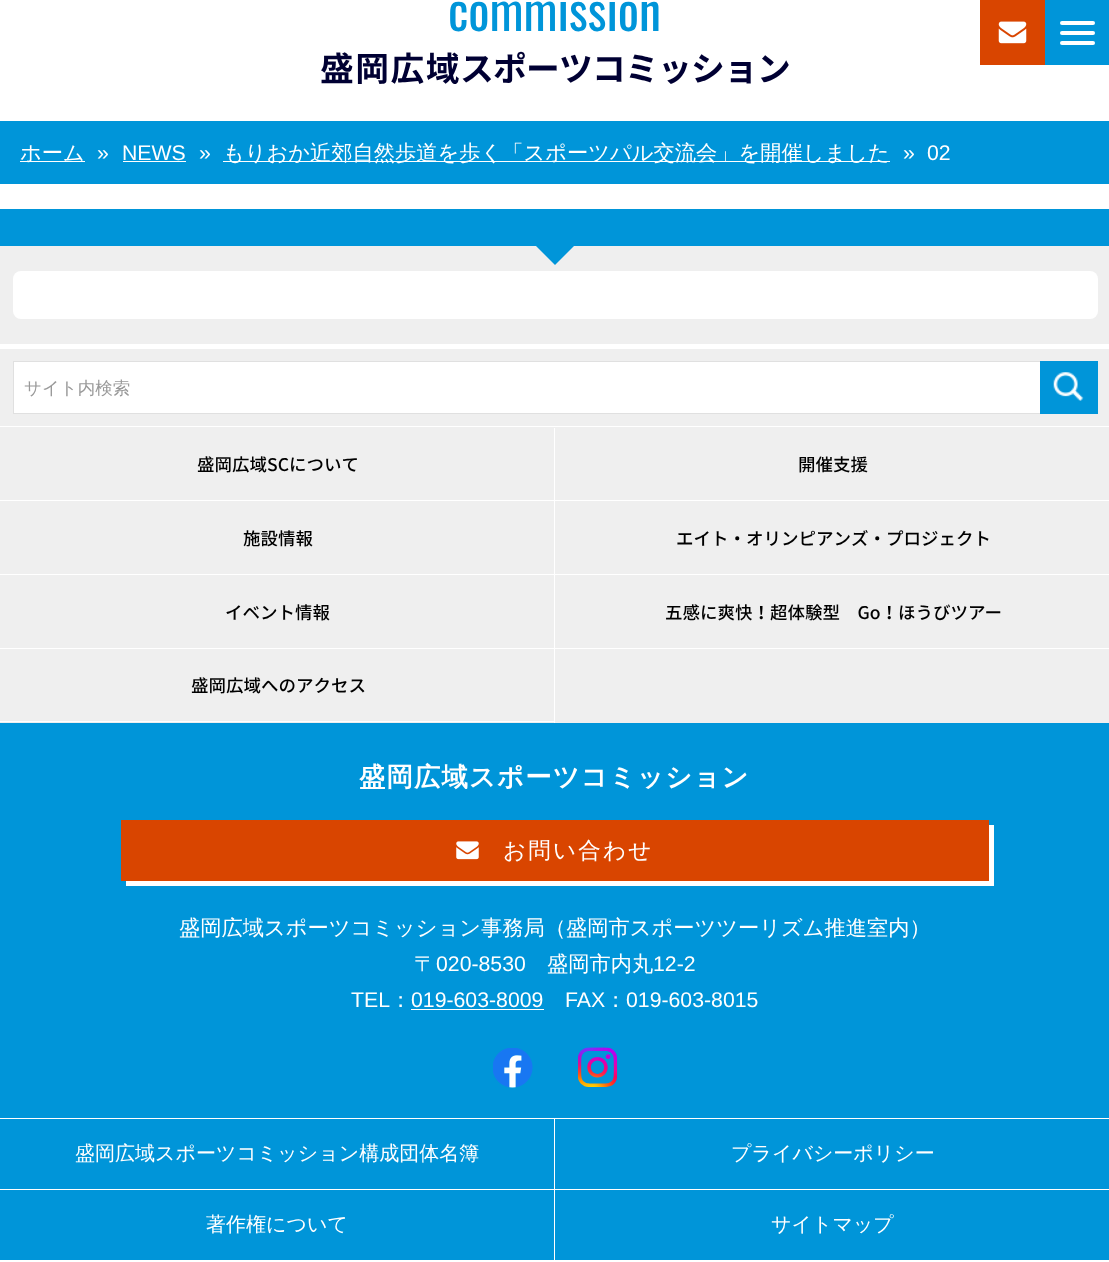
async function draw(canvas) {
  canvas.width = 1109;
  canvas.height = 1262;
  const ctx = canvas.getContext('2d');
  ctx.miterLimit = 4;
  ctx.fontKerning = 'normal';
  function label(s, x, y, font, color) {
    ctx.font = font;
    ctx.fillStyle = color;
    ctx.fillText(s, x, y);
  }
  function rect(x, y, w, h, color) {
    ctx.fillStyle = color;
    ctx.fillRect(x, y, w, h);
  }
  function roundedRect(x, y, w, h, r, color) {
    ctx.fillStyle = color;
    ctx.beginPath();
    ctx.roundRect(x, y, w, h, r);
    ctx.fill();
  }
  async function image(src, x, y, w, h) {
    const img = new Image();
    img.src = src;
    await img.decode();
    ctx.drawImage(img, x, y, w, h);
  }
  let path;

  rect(0, 0, 1109, 1262, '#fff');
  label('commission', 448, 31, '50px Oswald', '#0095d9');
  ctx.letterSpacing = '1.5px';
  label('盛岡広域', 320, 81, 'bold 33.75px Noto Sans JP', '#003');
  ctx.letterSpacing = '-0.75px';
  label('スポーツコミッション', 460, 81, 'bold 33.75px Noto Sans JP', '#003');
  rect(980, 0, 65, 65, '#d94500');
  await image('assets/img1.png', 998, 21, 29, 23);
  rect(1045, 0, 64, 65, '#0095d9');
  roundedRect(1060, 21, 35, 4, 2, '#fff');
  roundedRect(1060, 31, 35, 4, 2, '#fff');
  roundedRect(1060, 41, 35, 4, 2, '#fff');
  rect(0, 121, 1109, 63, '#0095d9');
  rect(20, 161, 65, 1, '#fff');
  ctx.letterSpacing = '0px';
  label('ホーム', 20, 160, '500 21.25px WenQuanYi Zen Hei', '#fff');
  label('»', 97, 160, '21.25px Liberation Sans', '#fff');
  label('NEWS', 122, 160, '21.25px Liberation Sans', '#fff');
  rect(123, 161, 63, 1, '#fff');
  label('»', 199, 160, '21.25px Liberation Sans', '#fff');
  rect(223, 161, 667, 1, '#fff');
  label('もりおか近郊自然歩道を歩く「スポーツパル交流会」を開催しました', 223, 160, '500 21.25px WenQuanYi Zen Hei', '#fff');
  label('»', 903, 160, '21.25px Liberation Sans', '#fff');
  label('02', 927, 160, '21.25px Liberation Sans', '#fff');
  rect(0, 246, 1109, 98, '#efefef');
  rect(0, 209, 1109, 37, '#0095d9');
  path = new Path2D('M536 246H574L555 265Z');
  ctx.fill(path);
  roundedRect(13, 271, 1085, 48, 8, '#fff');
  rect(0, 349, 1109, 77, '#efefef');
  rect(14, 362, 1026, 51, '#fff');
  ctx.strokeStyle = '#e0e0e0';
  ctx.strokeRect(13.5, 361.5, 1084, 52);
  label('サイト内検索', 24, 394, '500 17.5px WenQuanYi Zen Hei', '#999');
  rect(1040, 361, 58, 53, '#0095d9');
  await image('assets/img2.png', 1053, 372, 31, 29);
  rect(0, 427, 1109, 296, '#efefef');
  rect(554, 428, 1, 295, '#fff');
  rect(0, 500, 1109, 1, '#fff');
  label('盛岡広域SCについて', 197, 471, '500 17.5px Noto Sans JP', '#000');
  label('開催支援', 798, 471, '500 17.5px Noto Sans JP', '#000');
  rect(0, 574, 1109, 1, '#fff');
  label('施設情報', 243, 545, '500 17.5px Noto Sans JP', '#000');
  label('エイト・オリンピアンズ・プロジェクト', 676, 545, '500 17.5px Noto Sans JP', '#000');
  rect(0, 648, 1109, 1, '#fff');
  label('イベント情報', 225, 619, '500 17.5px Noto Sans JP', '#000');
  label('五感に爽快！超体験型　Go！ほうびツアー', 665, 619, '500 17.5px Noto Sans JP', '#000');
  rect(0, 721, 555, 1, '#fff');
  label('盛岡広域へのアクセス', 191, 692, '500 17.5px Noto Sans JP', '#000');
  rect(0, 723, 1109, 537, '#0095d9');
  ctx.letterSpacing = '1.25px';
  label('盛岡広域スポーツコミッション', 359, 786, 'bold 26.25px WenQuanYi Zen Hei', '#fff');
  path = new Path2D('M126 881V886H994V825H989V881Z');
  ctx.fill(path);
  rect(121, 820, 868, 61, '#d94500');
  await image('assets/img3.png', 456, 841, 23, 19);
  ctx.letterSpacing = '2.25px';
  label('お問い合わせ', 503, 858, '500 22.5px WenQuanYi Zen Hei', '#fff');
  ctx.letterSpacing = '0px';
  label('盛岡広域スポーツコミッション事務局（盛岡市スポーツツーリズム推進室内）', 179, 935, '500 21.25px WenQuanYi Zen Hei', '#fff');
  label('〒', 414, 971, '500 21.25px WenQuanYi Zen Hei', '#fff');
  label('020-8530', 436, 971, '21.25px Liberation Sans', '#fff');
  label('盛岡市内丸', 547, 971, '500 21.25px WenQuanYi Zen Hei', '#fff');
  label('12-2', 653, 971, '21.25px Liberation Sans', '#fff');
  label('TEL', 351, 1007, '21.25px Liberation Sans', '#fff');
  label('：', 390, 1007, '500 21.25px WenQuanYi Zen Hei', '#fff');
  label('019-603-8009', 411, 1007, '21.25px Liberation Sans', '#fff');
  rect(411, 1009, 133, 1, '#fff');
  label('FAX', 565, 1007, '21.25px Liberation Sans', '#fff');
  label('：', 605, 1007, '500 21.25px WenQuanYi Zen Hei', '#fff');
  label('019-603-8015', 626, 1007, '21.25px Liberation Sans', '#fff');
  await image('assets/img4.png', 493, 1048, 40, 40);
  await image('assets/img5.png', 578, 1047, 40, 40);
  rect(0, 1118, 1109, 1, '#fff');
  rect(554, 1119, 1, 142, '#fff');
  rect(0, 1189, 1109, 1, '#fff');
  label('盛岡広域スポーツコミッション構成団体名簿', 75, 1160, '500 20px WenQuanYi Zen Hei', '#fff');
  label('プライバシーポリシー', 731, 1160, '500 20px WenQuanYi Zen Hei', '#fff');
  label('著作権について', 206, 1231, '500 20px WenQuanYi Zen Hei', '#fff');
  label('サイトマップ', 771, 1231, '500 20px WenQuanYi Zen Hei', '#fff');
}

draw(document.querySelector('canvas'));
